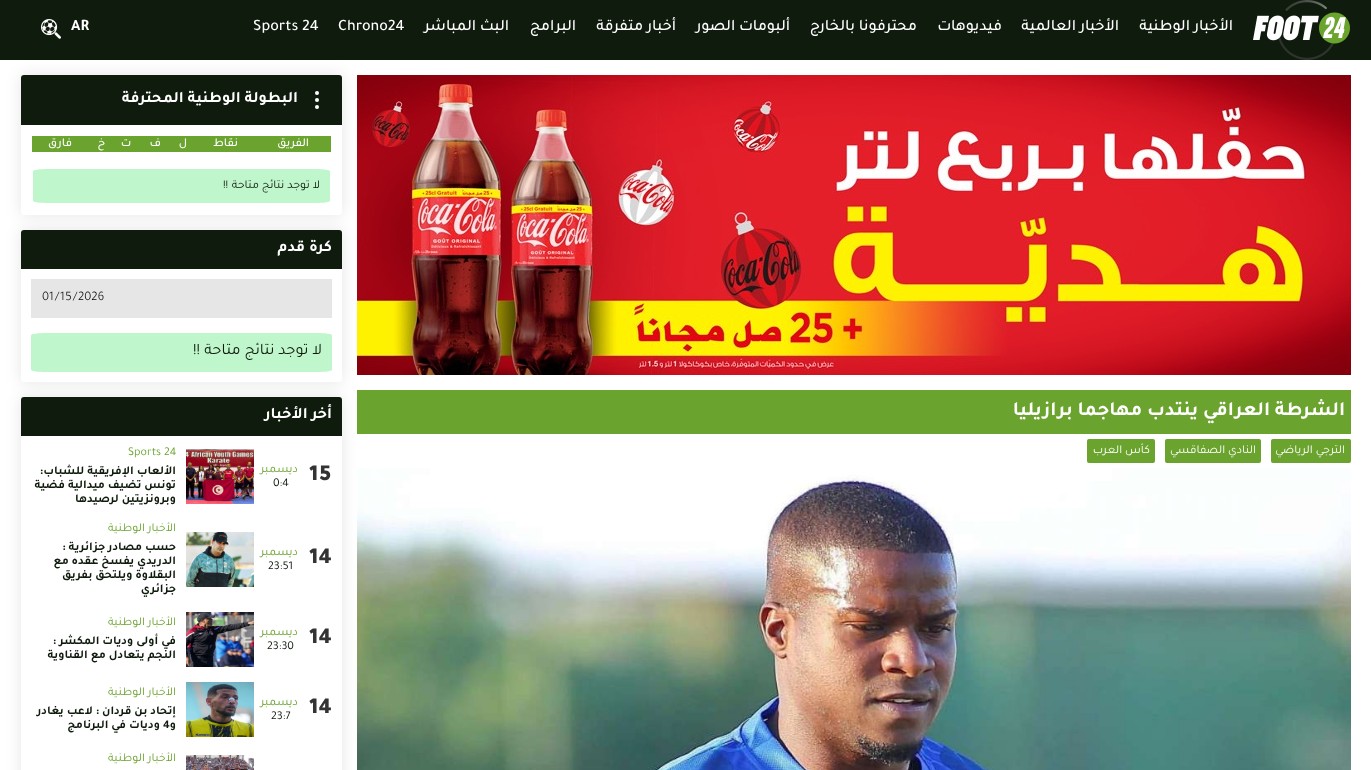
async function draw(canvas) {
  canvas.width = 1371;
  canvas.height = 770;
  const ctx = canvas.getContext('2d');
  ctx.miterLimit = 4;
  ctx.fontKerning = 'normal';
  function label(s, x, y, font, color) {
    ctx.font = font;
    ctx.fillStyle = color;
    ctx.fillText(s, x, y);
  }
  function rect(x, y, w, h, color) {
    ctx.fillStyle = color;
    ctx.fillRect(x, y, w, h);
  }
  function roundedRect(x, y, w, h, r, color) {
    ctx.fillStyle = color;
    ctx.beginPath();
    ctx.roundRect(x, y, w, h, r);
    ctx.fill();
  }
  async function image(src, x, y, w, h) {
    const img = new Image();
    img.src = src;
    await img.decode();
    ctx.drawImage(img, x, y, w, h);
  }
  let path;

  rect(0, 0, 1371, 770, '#fff');
  rect(0, 0, 1371, 60, '#0f1b0d');
  await image('assets/img1.png', 1253, 0, 97, 60);
  ctx.direction = 'rtl';
  label('الأخبار الوطنية', 1233, 30, '500 16px Tajawal', '#fff');
  label('الأخبار العالمية', 1119, 30, '500 16px Tajawal', '#fff');
  label('فيديوهات', 1002, 30, '500 16px Tajawal', '#fff');
  label('محترفونا بالخارج', 917, 30, '500 16px Tajawal', '#fff');
  label('ألبومات الصور', 790, 30, '500 16px Tajawal', '#fff');
  label('أخبار متفرقة', 676, 30, '500 16px Tajawal', '#fff');
  label('البرامج', 576, 30, '500 16px Tajawal', '#fff');
  label('البث المباشر', 509, 30, '500 16px Tajawal', '#fff');
  ctx.direction = 'ltr';
  label('Chrono24', 338, 30, '500 16px Tajawal', '#fff');
  label('Sports 24', 253, 30, '500 16px Tajawal', '#fff');
  label('AR', 71, 30, 'bold 16px Tajawal', '#fff');
  await image('assets/img2.png', 41, 19, 20, 20);
  rect(357, 390, 994, 44, '#6ba32f');
  ctx.save();
  path = new Path2D('M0 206H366V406H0ZM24 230H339C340.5 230 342 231.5 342 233V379C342 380.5 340.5 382 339 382H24C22.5 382 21 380.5 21 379V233C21 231.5 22.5 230 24 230Z');
  ctx.clip(path, 'evenodd');
  ctx.fillStyle = '#0000001a';
  ctx.filter = 'blur(7.5px)';
  ctx.beginPath();
  ctx.roundRect(21, 230, 321, 152, 3);
  ctx.fill();
  ctx.filter = 'none';
  ctx.restore();
  await image('assets/img4.png', 357, 468, 994, 302);
  ctx.save();
  path = new Path2D('M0 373H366V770H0ZM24 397H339C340.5 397 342 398.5 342 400V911C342 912.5 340.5 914 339 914H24C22.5 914 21 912.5 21 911V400C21 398.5 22.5 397 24 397Z');
  ctx.clip(path, 'evenodd');
  ctx.fillStyle = '#0000001a';
  ctx.filter = 'blur(7.5px)';
  ctx.beginPath();
  ctx.roundRect(21, 397, 321, 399, 3);
  ctx.fill();
  ctx.filter = 'none';
  ctx.restore();
  await image('assets/img3.png', 357, 75, 994, 300);
  ctx.direction = 'rtl';
  label('الشرطة العراقي ينتدب مهاجما برازيليا', 1345, 415, 'bold 20px Tajawal', '#fff');
  roundedRect(1271, 439, 80, 24, 2, '#6ba32f');
  label('الترجي الرياضي', 1345, 453, '12px Tajawal', '#fff');
  roundedRect(1165, 439, 96, 24, 2, '#6ba32f');
  label('النادي الصفاقسي', 1256, 453, '12px Tajawal', '#fff');
  roundedRect(1087, 439, 68, 24, 2, '#6ba32f');
  label('كأس العرب', 1150, 453, '12px Tajawal', '#fff');
  ctx.fillStyle = '#0f1b0d';
  ctx.beginPath();
  ctx.roundRect(21, 230, 321, 39, [3, 3, 0, 0]);
  ctx.fill();
  ctx.save();
  path = new Path2D('M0 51H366V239H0ZM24 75H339C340.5 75 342 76.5 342 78V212C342 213.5 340.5 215 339 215H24C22.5 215 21 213.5 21 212V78C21 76.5 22.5 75 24 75Z');
  ctx.clip(path, 'evenodd');
  ctx.fillStyle = '#0000001a';
  ctx.filter = 'blur(7.5px)';
  ctx.beginPath();
  ctx.roundRect(21, 75, 321, 140, 3);
  ctx.fill();
  ctx.filter = 'none';
  ctx.restore();
  ctx.beginPath();
  ctx.roundRect(21, 75, 321, 50, [3, 3, 0, 0]);
  ctx.fill();
  ctx.fillStyle = '#fff';
  ctx.beginPath();
  ctx.arc(317, 93, 2, 0, 2 * Math.PI);
  ctx.fill();
  ctx.beginPath();
  ctx.arc(317, 100, 2, 0, 2 * Math.PI);
  ctx.fill();
  ctx.beginPath();
  ctx.arc(317, 107, 2, 0, 2 * Math.PI);
  ctx.fill();
  label('البطولة الوطنية المحترفة', 298, 102, 'bold 16px Tajawal', '#fff');
  rect(32, 136, 299, 16, '#6ba32f');
  label('الفريق', 309, 146, '500 12px Tajawal', '#fff');
  label('نقاط', 238, 146, '500 12px Tajawal', '#fff');
  label('ل', 187, 146, '500 12px Tajawal', '#fff');
  label('ف', 161, 146, '500 12px Tajawal', '#fff');
  label('ت', 131, 146, '500 12px Tajawal', '#fff');
  label('خ', 105, 146, '500 12px Tajawal', '#fff');
  label('فارق', 72, 146, '500 12px Tajawal', '#fff');
  ctx.fillStyle = '#bff6cb';
  path = new Path2D('M48 169H315C323 169 330 170 330 171V201C330 202 323 203 315 203H48C40 203 33 202 33 201V171C33 170 40 169 48 169Z');
  ctx.fill(path);
  label('لا توجد نتائج متاحة', 320, 188, '12px Tajawal', '#0f1b0d');
  ctx.direction = 'ltr';
  label('!!', 223, 188, '12px Tajawal', '#0f1b0d');
  ctx.direction = 'rtl';
  label('كرة قدم', 332, 251, 'bold 16px Tajawal', '#fff');
  rect(31, 279, 301, 39, '#e6e6e6');
  ctx.direction = 'ltr';
  label('2026', 78, 300, '300 13px Tajawal', '#000');
  label('/', 73, 300, '300 13px Tajawal', '#000');
  label('15', 60, 300, '300 13px Tajawal', '#000');
  label('/', 55, 300, '300 13px Tajawal', '#000');
  label('01', 42, 300, '300 13px Tajawal', '#000');
  ctx.fillStyle = '#bff6cb';
  path = new Path2D('M46 333H317C325 333 332 334 332 335V370C332 371 325 372 317 372H46C38 372 31 371 31 370V335C31 334 38 333 46 333Z');
  ctx.fill(path);
  ctx.direction = 'rtl';
  label('لا توجد نتائج متاحة', 322, 354, '16px Tajawal', '#0f1b0d');
  ctx.direction = 'ltr';
  label('!!', 193, 354, '16px Tajawal', '#0f1b0d');
  ctx.beginPath();
  ctx.roundRect(21, 397, 321, 39, [3, 3, 0, 0]);
  ctx.fill();
  ctx.direction = 'rtl';
  label('أخر الأخبار', 332, 418, 'bold 16px Tajawal', '#fff');
  ctx.direction = 'ltr';
  label('15', 309, 480, '900 23px Tajawal', '#333');
  ctx.direction = 'rtl';
  label('ديسمبر', 298, 472, '12px Tajawal', '#6ba32f');
  ctx.direction = 'ltr';
  label('0:4', 273, 486, '12px Tajawal', '#0f1b0d');
  await image('assets/img5.png', 186, 449, 68, 55);
  label('Sports 24', 128, 455, '12px Tajawal', '#6ba32f');
  ctx.direction = 'rtl';
  label('الألعاب الإفريقية للشباب:', 176, 474, 'bold 12px Tajawal', '#0f1b0d');
  label('تونس تضيف ميدالية فضية', 176, 488, 'bold 12px Tajawal', '#0f1b0d');
  label('وبرونزيتين لرصيدها', 176, 502, 'bold 12px Tajawal', '#0f1b0d');
  ctx.direction = 'ltr';
  label('14', 309, 563, '900 23px Tajawal', '#333');
  ctx.direction = 'rtl';
  label('ديسمبر', 298, 555, '12px Tajawal', '#6ba32f');
  ctx.direction = 'ltr';
  label('23:51', 268, 569, '12px Tajawal', '#0f1b0d');
  await image('assets/img6.png', 186, 532, 68, 55);
  ctx.direction = 'rtl';
  label('الأخبار الوطنية', 176, 531, '12px Tajawal', '#6ba32f');
  label('حسب مصادر جزائرية :', 176, 550, 'bold 12px Tajawal', '#0f1b0d');
  label('الدريدي يفسخ عقده مع', 176, 564, 'bold 12px Tajawal', '#0f1b0d');
  label('البقلاوة ويلتحق بفريق', 176, 578, 'bold 12px Tajawal', '#0f1b0d');
  label('جزائري', 176, 592, 'bold 12px Tajawal', '#0f1b0d');
  ctx.direction = 'ltr';
  label('14', 309, 643, '900 23px Tajawal', '#333');
  ctx.direction = 'rtl';
  label('ديسمبر', 298, 635, '12px Tajawal', '#6ba32f');
  ctx.direction = 'ltr';
  label('23:30', 267, 649, '12px Tajawal', '#0f1b0d');
  await image('assets/img7.png', 186, 612, 68, 55);
  ctx.direction = 'rtl';
  label('الأخبار الوطنية', 176, 625, '12px Tajawal', '#6ba32f');
  label('في أولى وديات المكشر :', 176, 644, 'bold 12px Tajawal', '#0f1b0d');
  label('النجم يتعادل مع القناوية', 176, 658, 'bold 12px Tajawal', '#0f1b0d');
  ctx.direction = 'ltr';
  label('14', 309, 713, '900 23px Tajawal', '#333');
  ctx.direction = 'rtl';
  label('ديسمبر', 298, 705, '12px Tajawal', '#6ba32f');
  ctx.direction = 'ltr';
  label('23:7', 271, 719, '12px Tajawal', '#0f1b0d');
  await image('assets/img8.png', 186, 682, 68, 55);
  ctx.direction = 'rtl';
  label('الأخبار الوطنية', 176, 695, '12px Tajawal', '#6ba32f');
  label('إتحاد بن قردان : لاعب يغادر', 176, 714, 'bold 12px Tajawal', '#0f1b0d');
  label('و', 176, 728, 'bold 12px Tajawal', '#0f1b0d');
  ctx.direction = 'ltr';
  label('4', 163, 728, 'bold 12px Tajawal', '#0f1b0d');
  ctx.direction = 'rtl';
  label('وديات في البرنامج', 160, 728, 'bold 12px Tajawal', '#0f1b0d');
  await image('assets/img9.png', 186, 755, 68, 15);
  label('الأخبار الوطنية', 176, 761, '12px Tajawal', '#6ba32f');
}

draw(document.querySelector('canvas'));
